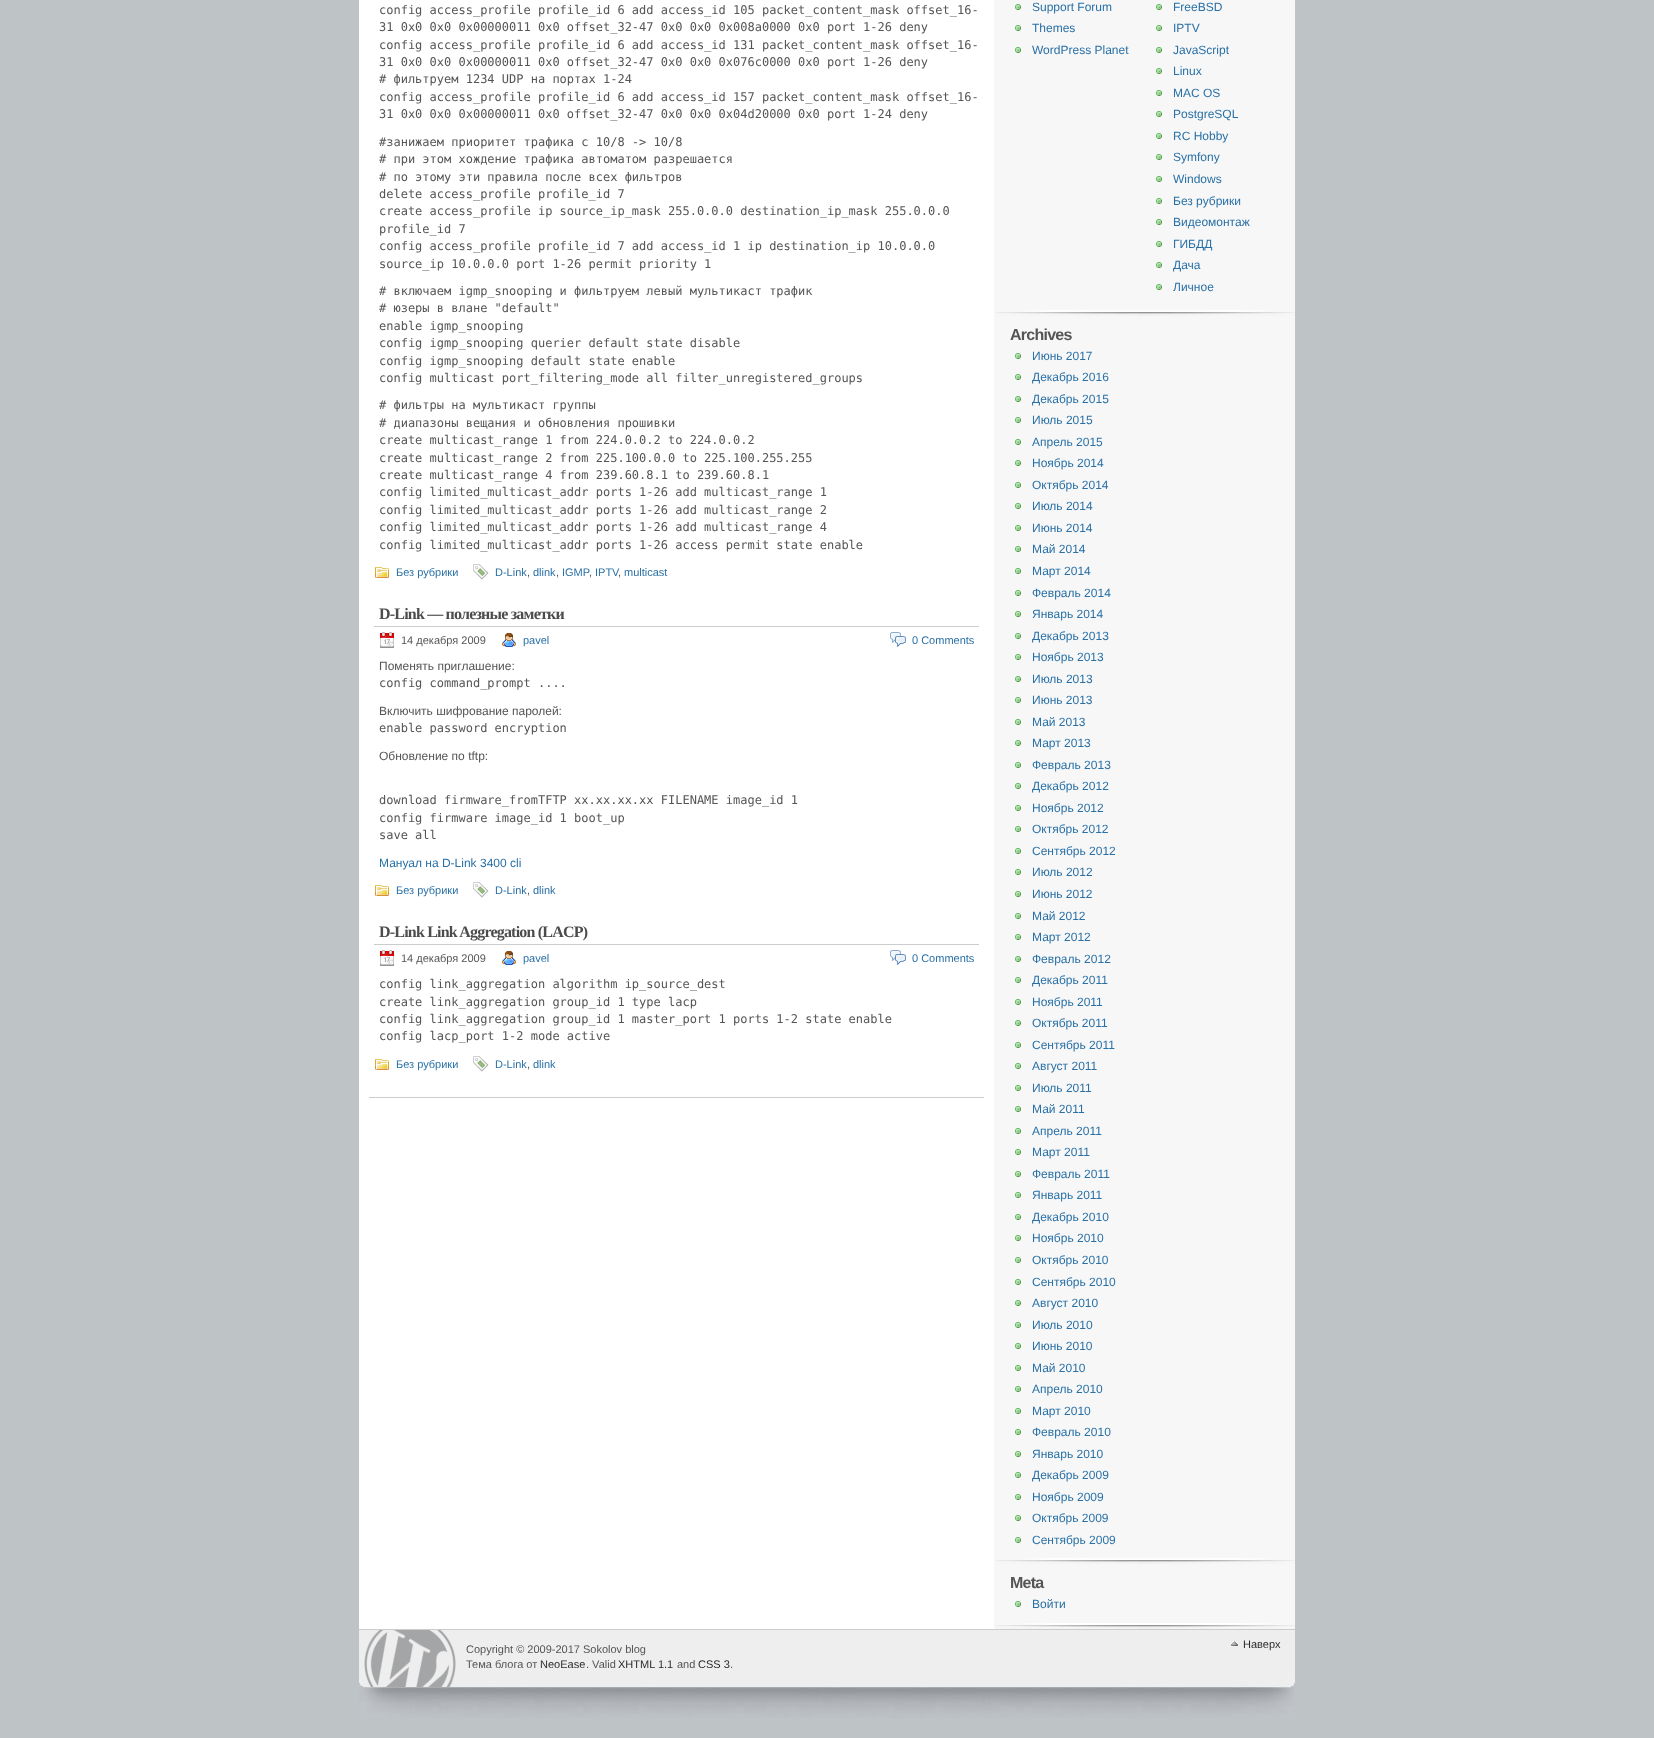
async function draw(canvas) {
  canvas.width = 1654;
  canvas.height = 1738;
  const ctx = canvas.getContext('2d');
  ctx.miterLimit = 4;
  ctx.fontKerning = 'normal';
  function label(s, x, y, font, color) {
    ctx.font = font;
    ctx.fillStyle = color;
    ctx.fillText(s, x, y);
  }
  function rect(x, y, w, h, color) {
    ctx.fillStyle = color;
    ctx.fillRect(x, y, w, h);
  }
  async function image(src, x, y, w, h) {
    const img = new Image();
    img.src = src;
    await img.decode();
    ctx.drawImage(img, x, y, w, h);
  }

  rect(0, 0, 1654, 1738, '#bec3c6');
  rect(359, 0, 635, 1629, '#fff');
  rect(994, 0, 301, 1629, '#f7f7f7');
  label('config access_profile profile_id 6 add access_id 105 packet_content_mask offset_16-', 379, 14, '12px DejaVu Sans Mono', '#555');
  label('31 0x0 0x0 0x00000011 0x0 offset_32-47 0x0 0x0 0x008a0000 0x0 port 1-26 deny', 379, 31, '12px DejaVu Sans Mono', '#555');
  label('config access_profile profile_id 6 add access_id 131 packet_content_mask offset_16-', 379, 49, '12px DejaVu Sans Mono', '#555');
  label('31 0x0 0x0 0x00000011 0x0 offset_32-47 0x0 0x0 0x076c0000 0x0 port 1-26 deny', 379, 66, '12px DejaVu Sans Mono', '#555');
  label('# фильтруем 1234 UDP на портах 1-24', 379, 83, '12px DejaVu Sans Mono', '#555');
  label('config access_profile profile_id 6 add access_id 157 packet_content_mask offset_16-', 379, 101, '12px DejaVu Sans Mono', '#555');
  label('31 0x0 0x0 0x00000011 0x0 offset_32-47 0x0 0x0 0x04d20000 0x0 port 1-24 deny', 379, 118, '12px DejaVu Sans Mono', '#555');
  label('#занижаем приоритет трафика с 10/8 -> 10/8', 379, 146, '12px DejaVu Sans Mono', '#555');
  label('# при этом хождение трафика автоматом разрешается', 379, 163, '12px DejaVu Sans Mono', '#555');
  label('# по этому эти правила после всех фильтров', 379, 181, '12px DejaVu Sans Mono', '#555');
  label('delete access_profile profile_id 7', 379, 198, '12px DejaVu Sans Mono', '#555');
  label('create access_profile ip source_ip_mask 255.0.0.0 destination_ip_mask 255.0.0.0', 379, 215, '12px DejaVu Sans Mono', '#555');
  label('profile_id 7', 379, 233, '12px DejaVu Sans Mono', '#555');
  label('config access_profile profile_id 7 add access_id 1 ip destination_ip 10.0.0.0', 379, 250, '12px DejaVu Sans Mono', '#555');
  label('source_ip 10.0.0.0 port 1-26 permit priority 1', 379, 268, '12px DejaVu Sans Mono', '#555');
  label('# включаем igmp_snooping и фильтруем левый мультикаст трафик', 379, 295, '12px DejaVu Sans Mono', '#555');
  label('# юзеры в влане "default"', 379, 312, '12px DejaVu Sans Mono', '#555');
  label('enable igmp_snooping', 379, 330, '12px DejaVu Sans Mono', '#555');
  label('config igmp_snooping querier default state disable', 379, 347, '12px DejaVu Sans Mono', '#555');
  label('config igmp_snooping default state enable', 379, 365, '12px DejaVu Sans Mono', '#555');
  label('config multicast port_filtering_mode all filter_unregistered_groups', 379, 382, '12px DejaVu Sans Mono', '#555');
  label('# фильтры на мультикаст группы', 379, 409, '12px DejaVu Sans Mono', '#555');
  label('# диапазоны вещания и обновления прошивки', 379, 427, '12px DejaVu Sans Mono', '#555');
  label('create multicast_range 1 from 224.0.0.2 to 224.0.0.2', 379, 444, '12px DejaVu Sans Mono', '#555');
  label('create multicast_range 2 from 225.100.0.0 to 225.100.255.255', 379, 462, '12px DejaVu Sans Mono', '#555');
  label('create multicast_range 4 from 239.60.8.1 to 239.60.8.1', 379, 479, '12px DejaVu Sans Mono', '#555');
  label('config limited_multicast_addr ports 1-26 add multicast_range 1', 379, 496, '12px DejaVu Sans Mono', '#555');
  label('config limited_multicast_addr ports 1-26 add multicast_range 2', 379, 514, '12px DejaVu Sans Mono', '#555');
  label('config limited_multicast_addr ports 1-26 add multicast_range 4', 379, 531, '12px DejaVu Sans Mono', '#555');
  label('config limited_multicast_addr ports 1-26 access permit state enable', 379, 549, '12px DejaVu Sans Mono', '#555');
  await image('assets/img1.png', 375, 567, 14, 11);
  label('Без рубрики', 396, 576, '11px Liberation Sans', '#2970a6');
  await image('assets/img2.png', 473, 564, 16, 16);
  label('D-Link', 495, 576, '11px Liberation Sans', '#2970a6');
  label(',', 527, 576, '11px Liberation Sans', '#555');
  label('dlink', 533, 576, '11px Liberation Sans', '#2970a6');
  label(',', 556, 576, '11px Liberation Sans', '#555');
  label('IGMP', 562, 576, '11px Liberation Sans', '#2970a6');
  label('IPTV', 595, 576, '11px Liberation Sans', '#2970a6');
  label('multicast', 624, 576, '11px Liberation Sans', '#2970a6');
  label(',', 589, 576, '11px Liberation Sans', '#555');
  label(',', 618, 576, '11px Liberation Sans', '#555');
  rect(374, 626, 605, 1, '#ccc');
  ctx.letterSpacing = '-0.8px';
  label('D-Link — полезные заметки', 379, 619, 'bold 16px Liberation Serif', '#4c4c4c');
  await image('assets/img3.png', 380, 632, 14, 16);
  ctx.letterSpacing = '0px';
  label('14 декабря 2009', 401, 644, '11px Liberation Sans', '#555');
  await image('assets/img4.png', 502, 633, 14, 14);
  label('pavel', 523, 644, '11px Liberation Sans', '#2970a6');
  await image('assets/img5.png', 890, 632, 16, 15);
  label('0 Comments', 912, 644, '11px Liberation Sans', '#2970a6');
  label('Поменять приглашение:', 379, 670, '12px Liberation Sans', '#555');
  label('config command_prompt ....', 379, 687, '12px DejaVu Sans Mono', '#555');
  label('Включить шифрование паролей:', 379, 715, '12px Liberation Sans', '#555');
  label('enable password encryption', 379, 732, '12px DejaVu Sans Mono', '#555');
  label('Обновление по tftp:', 379, 760, '12px Liberation Sans', '#555');
  label('download firmware_fromTFTP xx.xx.xx.xx FILENAME image_id 1', 379, 804, '12px DejaVu Sans Mono', '#555');
  label('config firmware image_id 1 boot_up', 379, 822, '12px DejaVu Sans Mono', '#555');
  label('save all', 379, 839, '12px DejaVu Sans Mono', '#555');
  label('Мануал на D-Link 3400 cli', 379, 867, '12px Liberation Sans', '#2970a6');
  await image('assets/img1.png', 375, 885, 14, 11);
  label('Без рубрики', 396, 894, '11px Liberation Sans', '#2970a6');
  await image('assets/img2.png', 473, 882, 16, 16);
  label('D-Link', 495, 894, '11px Liberation Sans', '#2970a6');
  label(',', 527, 894, '11px Liberation Sans', '#555');
  label('dlink', 533, 894, '11px Liberation Sans', '#2970a6');
  rect(374, 944, 605, 1, '#ccc');
  ctx.letterSpacing = '-0.8px';
  label('D-Link Link Aggregation (LACP)', 379, 937, 'bold 16px Liberation Serif', '#4c4c4c');
  await image('assets/img3.png', 380, 950, 14, 16);
  ctx.letterSpacing = '0px';
  label('14 декабря 2009', 401, 962, '11px Liberation Sans', '#555');
  await image('assets/img4.png', 502, 951, 14, 14);
  label('pavel', 523, 962, '11px Liberation Sans', '#2970a6');
  await image('assets/img5.png', 890, 950, 16, 15);
  label('0 Comments', 912, 962, '11px Liberation Sans', '#2970a6');
  label('config link_aggregation algorithm ip_source_dest', 379, 988, '12px DejaVu Sans Mono', '#555');
  label('create link_aggregation group_id 1 type lacp', 379, 1006, '12px DejaVu Sans Mono', '#555');
  label('config link_aggregation group_id 1 master_port 1 ports 1-2 state enable', 379, 1023, '12px DejaVu Sans Mono', '#555');
  label('config lacp_port 1-2 mode active', 379, 1040, '12px DejaVu Sans Mono', '#555');
  await image('assets/img1.png', 375, 1059, 14, 11);
  label('Без рубрики', 396, 1068, '11px Liberation Sans', '#2970a6');
  await image('assets/img2.png', 473, 1056, 16, 16);
  label('D-Link', 495, 1068, '11px Liberation Sans', '#2970a6');
  label(',', 527, 1068, '11px Liberation Sans', '#555');
  label('dlink', 533, 1068, '11px Liberation Sans', '#2970a6');
  rect(369, 1097, 615, 1, '#ccc');
  await image('assets/img6.png', 995, 310, 300, 6);
  await image('assets/img7.png', 1015, 4, 6, 6);
  label('Support Forum', 1032, 11, '12px Liberation Sans', '#2970a6');
  await image('assets/img7.png', 1015, 25, 6, 6);
  label('Themes', 1032, 32, '12px Liberation Sans', '#2970a6');
  await image('assets/img7.png', 1015, 47, 6, 6);
  label('WordPress Planet', 1032, 54, '12px Liberation Sans', '#2970a6');
  await image('assets/img7.png', 1156, 4, 6, 6);
  label('FreeBSD', 1173, 11, '12px Liberation Sans', '#2970a6');
  await image('assets/img7.png', 1156, 25, 6, 6);
  label('IPTV', 1173, 32, '12px Liberation Sans', '#2970a6');
  await image('assets/img7.png', 1156, 47, 6, 6);
  label('JavaScript', 1173, 54, '12px Liberation Sans', '#2970a6');
  await image('assets/img7.png', 1156, 68, 6, 6);
  label('Linux', 1173, 75, '12px Liberation Sans', '#2970a6');
  await image('assets/img7.png', 1156, 90, 6, 6);
  label('MAC OS', 1173, 97, '12px Liberation Sans', '#2970a6');
  await image('assets/img7.png', 1156, 111, 6, 6);
  label('PostgreSQL', 1173, 118, '12px Liberation Sans', '#2970a6');
  await image('assets/img7.png', 1156, 133, 6, 6);
  label('RC Hobby', 1173, 140, '12px Liberation Sans', '#2970a6');
  await image('assets/img7.png', 1156, 154, 6, 6);
  label('Symfony', 1173, 161, '12px Liberation Sans', '#2970a6');
  await image('assets/img7.png', 1156, 176, 6, 6);
  label('Windows', 1173, 183, '12px Liberation Sans', '#2970a6');
  await image('assets/img7.png', 1156, 198, 6, 6);
  label('Без рубрики', 1173, 205, '12px Liberation Sans', '#2970a6');
  await image('assets/img7.png', 1156, 219, 6, 6);
  label('Видеомонтаж', 1173, 226, '12px Liberation Sans', '#2970a6');
  await image('assets/img7.png', 1156, 241, 6, 6);
  label('ГИБДД', 1173, 248, '12px Liberation Sans', '#2970a6');
  await image('assets/img7.png', 1156, 262, 6, 6);
  label('Дача', 1173, 269, '12px Liberation Sans', '#2970a6');
  await image('assets/img7.png', 1156, 284, 6, 6);
  label('Личное', 1173, 291, '12px Liberation Sans', '#2970a6');
  await image('assets/img6.png', 995, 1558, 300, 6);
  ctx.letterSpacing = '-0.75px';
  label('Archives', 1010, 340, 'bold 16px Liberation Sans', '#555');
  await image('assets/img7.png', 1015, 353, 6, 6);
  ctx.letterSpacing = '0px';
  label('Июнь 2017', 1032, 360, '12px Liberation Sans', '#2970a6');
  await image('assets/img7.png', 1015, 374, 6, 6);
  label('Декабрь 2016', 1032, 381, '12px Liberation Sans', '#2970a6');
  await image('assets/img7.png', 1015, 396, 6, 6);
  label('Декабрь 2015', 1032, 403, '12px Liberation Sans', '#2970a6');
  await image('assets/img7.png', 1015, 417, 6, 6);
  label('Июль 2015', 1032, 424, '12px Liberation Sans', '#2970a6');
  await image('assets/img7.png', 1015, 439, 6, 6);
  label('Апрель 2015', 1032, 446, '12px Liberation Sans', '#2970a6');
  await image('assets/img7.png', 1015, 460, 6, 6);
  label('Ноябрь 2014', 1032, 467, '12px Liberation Sans', '#2970a6');
  await image('assets/img7.png', 1015, 482, 6, 6);
  label('Октябрь 2014', 1032, 489, '12px Liberation Sans', '#2970a6');
  await image('assets/img7.png', 1015, 503, 6, 6);
  label('Июль 2014', 1032, 510, '12px Liberation Sans', '#2970a6');
  await image('assets/img7.png', 1015, 525, 6, 6);
  label('Июнь 2014', 1032, 532, '12px Liberation Sans', '#2970a6');
  await image('assets/img7.png', 1015, 546, 6, 6);
  label('Май 2014', 1032, 553, '12px Liberation Sans', '#2970a6');
  await image('assets/img7.png', 1015, 568, 6, 6);
  label('Март 2014', 1032, 575, '12px Liberation Sans', '#2970a6');
  await image('assets/img7.png', 1015, 590, 6, 6);
  label('Февраль 2014', 1032, 597, '12px Liberation Sans', '#2970a6');
  await image('assets/img7.png', 1015, 611, 6, 6);
  label('Январь 2014', 1032, 618, '12px Liberation Sans', '#2970a6');
  await image('assets/img7.png', 1015, 633, 6, 6);
  label('Декабрь 2013', 1032, 640, '12px Liberation Sans', '#2970a6');
  await image('assets/img7.png', 1015, 654, 6, 6);
  label('Ноябрь 2013', 1032, 661, '12px Liberation Sans', '#2970a6');
  await image('assets/img7.png', 1015, 676, 6, 6);
  label('Июль 2013', 1032, 683, '12px Liberation Sans', '#2970a6');
  await image('assets/img7.png', 1015, 697, 6, 6);
  label('Июнь 2013', 1032, 704, '12px Liberation Sans', '#2970a6');
  await image('assets/img7.png', 1015, 719, 6, 6);
  label('Май 2013', 1032, 726, '12px Liberation Sans', '#2970a6');
  await image('assets/img7.png', 1015, 740, 6, 6);
  label('Март 2013', 1032, 747, '12px Liberation Sans', '#2970a6');
  await image('assets/img7.png', 1015, 762, 6, 6);
  label('Февраль 2013', 1032, 769, '12px Liberation Sans', '#2970a6');
  await image('assets/img7.png', 1015, 783, 6, 6);
  label('Декабрь 2012', 1032, 790, '12px Liberation Sans', '#2970a6');
  await image('assets/img7.png', 1015, 805, 6, 6);
  label('Ноябрь 2012', 1032, 812, '12px Liberation Sans', '#2970a6');
  await image('assets/img7.png', 1015, 826, 6, 6);
  label('Октябрь 2012', 1032, 833, '12px Liberation Sans', '#2970a6');
  await image('assets/img7.png', 1015, 848, 6, 6);
  label('Сентябрь 2012', 1032, 855, '12px Liberation Sans', '#2970a6');
  await image('assets/img7.png', 1015, 869, 6, 6);
  label('Июль 2012', 1032, 876, '12px Liberation Sans', '#2970a6');
  await image('assets/img7.png', 1015, 891, 6, 6);
  label('Июнь 2012', 1032, 898, '12px Liberation Sans', '#2970a6');
  await image('assets/img7.png', 1015, 913, 6, 6);
  label('Май 2012', 1032, 920, '12px Liberation Sans', '#2970a6');
  await image('assets/img7.png', 1015, 934, 6, 6);
  label('Март 2012', 1032, 941, '12px Liberation Sans', '#2970a6');
  await image('assets/img7.png', 1015, 956, 6, 6);
  label('Февраль 2012', 1032, 963, '12px Liberation Sans', '#2970a6');
  await image('assets/img7.png', 1015, 977, 6, 6);
  label('Декабрь 2011', 1032, 984, '12px Liberation Sans', '#2970a6');
  await image('assets/img7.png', 1015, 999, 6, 6);
  label('Ноябрь 2011', 1032, 1006, '12px Liberation Sans', '#2970a6');
  await image('assets/img7.png', 1015, 1020, 6, 6);
  label('Октябрь 2011', 1032, 1027, '12px Liberation Sans', '#2970a6');
  await image('assets/img7.png', 1015, 1042, 6, 6);
  label('Сентябрь 2011', 1032, 1049, '12px Liberation Sans', '#2970a6');
  await image('assets/img7.png', 1015, 1063, 6, 6);
  label('Август 2011', 1032, 1070, '12px Liberation Sans', '#2970a6');
  await image('assets/img7.png', 1015, 1085, 6, 6);
  label('Июль 2011', 1032, 1092, '12px Liberation Sans', '#2970a6');
  await image('assets/img7.png', 1015, 1106, 6, 6);
  label('Май 2011', 1032, 1113, '12px Liberation Sans', '#2970a6');
  await image('assets/img7.png', 1015, 1128, 6, 6);
  label('Апрель 2011', 1032, 1135, '12px Liberation Sans', '#2970a6');
  await image('assets/img7.png', 1015, 1149, 6, 6);
  label('Март 2011', 1032, 1156, '12px Liberation Sans', '#2970a6');
  await image('assets/img7.png', 1015, 1171, 6, 6);
  label('Февраль 2011', 1032, 1178, '12px Liberation Sans', '#2970a6');
  await image('assets/img7.png', 1015, 1192, 6, 6);
  label('Январь 2011', 1032, 1199, '12px Liberation Sans', '#2970a6');
  await image('assets/img7.png', 1015, 1214, 6, 6);
  label('Декабрь 2010', 1032, 1221, '12px Liberation Sans', '#2970a6');
  await image('assets/img7.png', 1015, 1235, 6, 6);
  label('Ноябрь 2010', 1032, 1242, '12px Liberation Sans', '#2970a6');
  await image('assets/img7.png', 1015, 1257, 6, 6);
  label('Октябрь 2010', 1032, 1264, '12px Liberation Sans', '#2970a6');
  await image('assets/img7.png', 1015, 1279, 6, 6);
  label('Сентябрь 2010', 1032, 1286, '12px Liberation Sans', '#2970a6');
  await image('assets/img7.png', 1015, 1300, 6, 6);
  label('Август 2010', 1032, 1307, '12px Liberation Sans', '#2970a6');
  await image('assets/img7.png', 1015, 1322, 6, 6);
  label('Июль 2010', 1032, 1329, '12px Liberation Sans', '#2970a6');
  await image('assets/img7.png', 1015, 1343, 6, 6);
  label('Июнь 2010', 1032, 1350, '12px Liberation Sans', '#2970a6');
  await image('assets/img7.png', 1015, 1365, 6, 6);
  label('Май 2010', 1032, 1372, '12px Liberation Sans', '#2970a6');
  await image('assets/img7.png', 1015, 1386, 6, 6);
  label('Апрель 2010', 1032, 1393, '12px Liberation Sans', '#2970a6');
  await image('assets/img7.png', 1015, 1408, 6, 6);
  label('Март 2010', 1032, 1415, '12px Liberation Sans', '#2970a6');
  await image('assets/img7.png', 1015, 1429, 6, 6);
  label('Февраль 2010', 1032, 1436, '12px Liberation Sans', '#2970a6');
  await image('assets/img7.png', 1015, 1451, 6, 6);
  label('Январь 2010', 1032, 1458, '12px Liberation Sans', '#2970a6');
  await image('assets/img7.png', 1015, 1472, 6, 6);
  label('Декабрь 2009', 1032, 1479, '12px Liberation Sans', '#2970a6');
  await image('assets/img7.png', 1015, 1494, 6, 6);
  label('Ноябрь 2009', 1032, 1501, '12px Liberation Sans', '#2970a6');
  await image('assets/img7.png', 1015, 1515, 6, 6);
  label('Октябрь 2009', 1032, 1522, '12px Liberation Sans', '#2970a6');
  await image('assets/img7.png', 1015, 1537, 6, 6);
  label('Сентябрь 2009', 1032, 1544, '12px Liberation Sans', '#2970a6');
  await image('assets/img6.png', 995, 1623, 300, 6);
  ctx.letterSpacing = '-0.75px';
  label('Meta', 1010, 1588, 'bold 16px Liberation Sans', '#555');
  await image('assets/img7.png', 1015, 1601, 6, 6);
  ctx.letterSpacing = '0px';
  label('Войти', 1032, 1608, '12px Liberation Sans', '#2970a6');
  await image('assets/img8.png', 359, 1630, 936, 88);
  rect(359, 1629, 936, 1, '#ccc');
  await image('assets/img9.png', 364, 1630, 92, 57);
  label('Copyright © 2009-2017 Sokolov blog', 466, 1653, '11px Liberation Sans', '#555');
  await image('assets/img10.png', 1231, 1641, 7, 5);
  label('Наверх', 1243, 1648, '11px Liberation Sans', '#2a2a2a');
  label('Тема блога от', 466, 1668, '11px Liberation Sans', '#555');
  label('NeoEase', 540, 1668, '11px Liberation Sans', '#2a2a2a');
  label('. Valid', 586, 1668, '11px Liberation Sans', '#555');
  label('XHTML 1.1', 618, 1668, '11px Liberation Sans', '#2a2a2a');
  label('and', 677, 1668, '11px Liberation Sans', '#555');
  label('CSS 3', 698, 1668, '11px Liberation Sans', '#2a2a2a');
  label('.', 730, 1668, '11px Liberation Sans', '#555');
}

draw(document.querySelector('canvas'));
